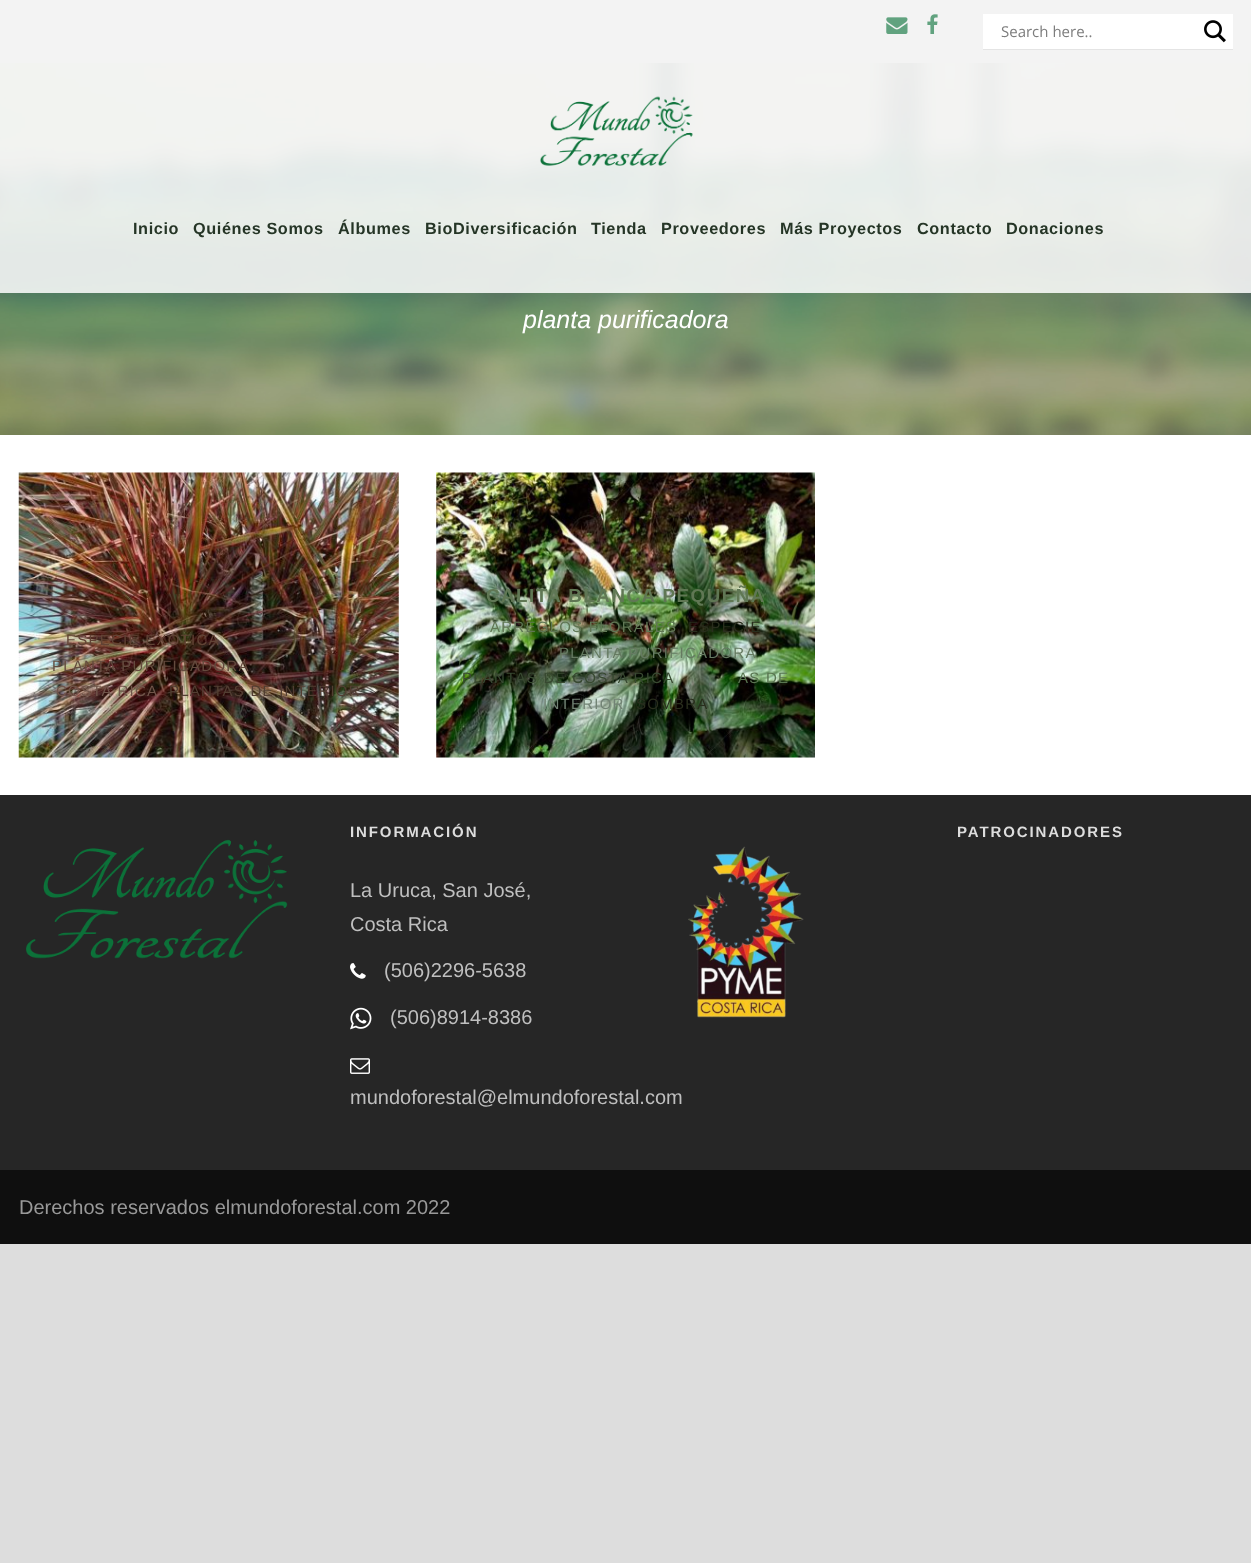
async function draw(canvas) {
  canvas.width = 1251;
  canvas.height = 1563;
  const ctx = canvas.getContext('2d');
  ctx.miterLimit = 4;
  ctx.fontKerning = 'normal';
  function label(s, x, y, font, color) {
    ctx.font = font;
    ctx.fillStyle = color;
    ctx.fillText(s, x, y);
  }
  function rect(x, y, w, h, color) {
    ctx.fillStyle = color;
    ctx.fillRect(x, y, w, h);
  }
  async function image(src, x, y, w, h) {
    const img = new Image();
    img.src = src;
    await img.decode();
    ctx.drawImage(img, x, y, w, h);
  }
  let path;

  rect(0, 0, 1251, 1563, '#ddd');
  rect(0, 435, 1251, 360, '#fff');
  rect(0, 0, 1251, 63, '#f3f3f3');
  await image('assets/img1.png', 886, 17, 22, 17);
  await image('assets/img2.png', 927, 14, 11, 20);
  ctx.fillStyle = '#e4e4e4';
  path = new Path2D('M983 49V50H1233V15H1232V49Z');
  ctx.fill(path);
  rect(983, 14, 250, 35, '#fff');
  label('Search here..', 1001, 37, '15px Open Sans', '#7d7d7d');
  await image('assets/img3.png', 1204, 20, 22, 23);
  await image('assets/img5.png', 0, 63, 1251, 372);
  rect(0, 63, 1251, 230, '#ffffffd9');
  await image('assets/img4.png', 540, 96, 153, 70);
  ctx.letterSpacing = '0.6px';
  label('Inicio', 133, 234, 'bold 16.25px Liberation Sans', '#253526');
  label('Quiénes Somos', 193, 234, 'bold 16.25px Liberation Sans', '#253526');
  label('Álbumes', 338, 234, 'bold 16.25px Liberation Sans', '#253526');
  label('BioDiversificación', 425, 234, 'bold 16.25px Liberation Sans', '#253526');
  label('Tienda', 591, 234, 'bold 16.25px Liberation Sans', '#253526');
  label('Proveedores', 661, 234, 'bold 16.25px Liberation Sans', '#253526');
  label('Más Proyectos', 780, 234, 'bold 16.25px Liberation Sans', '#253526');
  label('Contacto', 917, 234, 'bold 16.25px Liberation Sans', '#253526');
  label('Donaciones', 1006, 234, 'bold 16.25px Liberation Sans', '#253526');
  ctx.letterSpacing = '0px';
  label('planta purificadora', 523, 328, 'italic 25px Liberation Sans', '#fff');
  await image('assets/img6.png', 18, 472, 381, 286);
  ctx.letterSpacing = '1.25px';
  label('ESPECIE EXÓTICA', 66, 645, '15px Liberation Sans', '#614335');
  label('PLANTA PURIFICADORA', 52, 671, '15px Liberation Sans', '#644b3e');
  label('COSTA RICA', 56, 696, '15px Liberation Sans', '#70554a');
  label('PLANTAS DE INTERIOR', 169, 696, '15px Liberation Sans', '#523e32');
  await image('assets/img7.png', 436, 472, 379, 286);
  ctx.letterSpacing = '1.5px';
  label('CALITA BLANCA PEQUEÑA', 486, 602, 'bold 18.75px Liberation Sans', '#607754');
  ctx.letterSpacing = '1.25px';
  label('ARREGLOS FLORALES', 490, 632, '15px Liberation Sans', '#607754');
  label('ESPECIE', 688, 632, '15px Liberation Sans', '#292e1d');
  label('PLANTA PURIFICADORA', 559, 658, '15px Liberation Sans', '#657a61');
  label('PLANTAS DE COSTA RICA', 462, 683, '15px Liberation Sans', '#384931');
  label('AS DE', 738, 683, '15px Liberation Sans', '#597551');
  label('INTERIOR', 543, 709, '15px Liberation Sans', '#728375');
  label('SOMBRA', 636, 709, '15px Liberation Sans', '#292e1d');
  rect(0, 795, 1251, 375, '#262626');
  ctx.letterSpacing = '1.9px';
  label('INFORMACIÓN', 350, 837, 'bold 15px Liberation Sans', '#ddd');
  ctx.letterSpacing = '0px';
  label('La Uruca, San José,', 350, 897, '20px Liberation Sans', '#bfbfbf');
  label('Costa Rica', 350, 931, '20px Liberation Sans', '#bfbfbf');
  await image('assets/img8.png', 350, 963, 16, 16);
  label('(506)2296-5638', 384, 977, '20px Liberation Sans', '#bfbfbf');
  await image('assets/img9.png', 350, 1007, 22, 23);
  label('(506)8914-8386', 390, 1024, '20px Liberation Sans', '#bfbfbf');
  await image('assets/img10.png', 350, 1058, 20, 16);
  label('mundoforestal@elmundoforestal.com', 350, 1104, '20px Liberation Sans', '#bfbfbf');
  ctx.letterSpacing = '1.9px';
  label('PATROCINADORES', 957, 837, 'bold 15px Liberation Sans', '#ddd');
  await image('assets/img11.png', 26, 839, 262, 120);
  await image('assets/img12.png', 688, 846, 116, 172);
  rect(0, 1170, 1251, 74, '#0f0f0f');
  ctx.letterSpacing = '0px';
  label('Derechos reservados elmundoforestal.com 2022', 19, 1214, '20px Liberation Sans', '#999');
}

draw(document.querySelector('canvas'));
